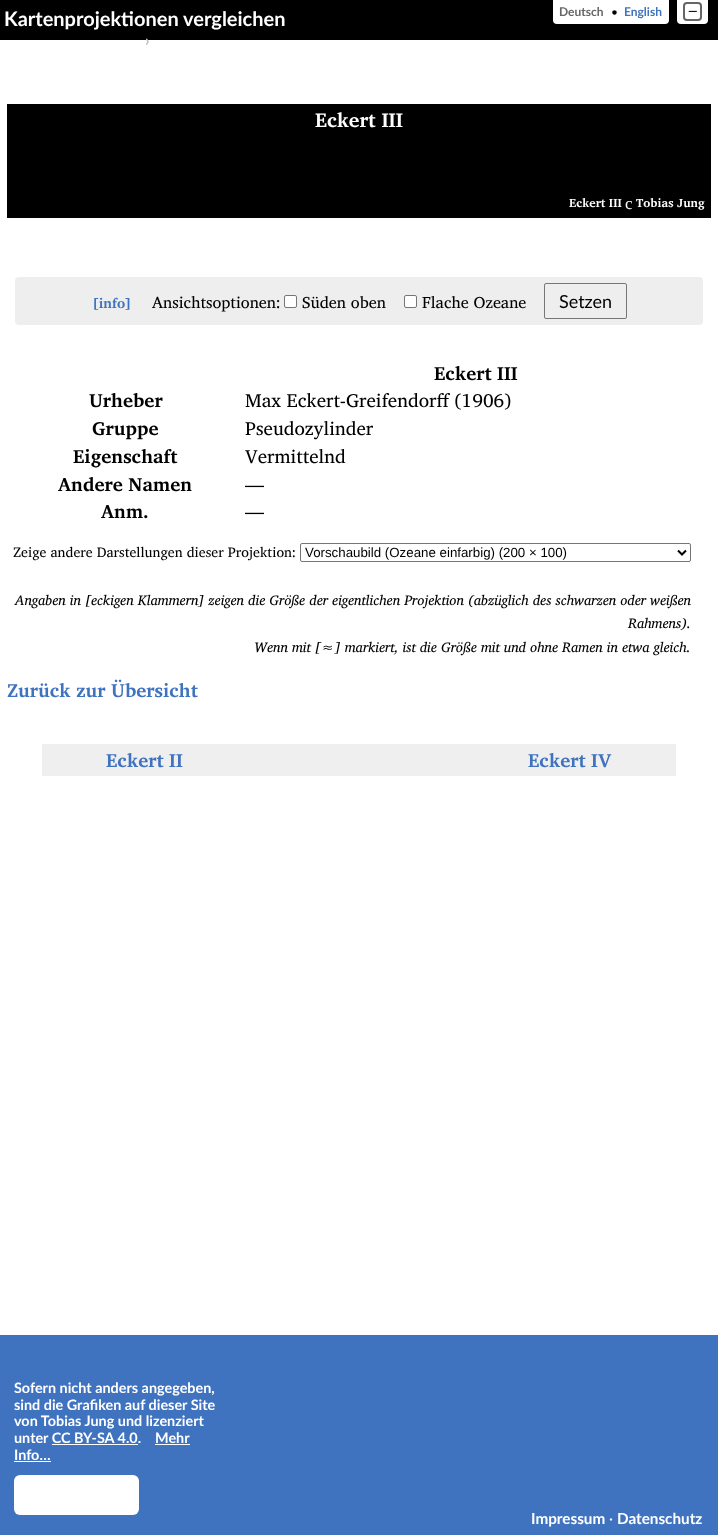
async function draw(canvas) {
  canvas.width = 718;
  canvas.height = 1535;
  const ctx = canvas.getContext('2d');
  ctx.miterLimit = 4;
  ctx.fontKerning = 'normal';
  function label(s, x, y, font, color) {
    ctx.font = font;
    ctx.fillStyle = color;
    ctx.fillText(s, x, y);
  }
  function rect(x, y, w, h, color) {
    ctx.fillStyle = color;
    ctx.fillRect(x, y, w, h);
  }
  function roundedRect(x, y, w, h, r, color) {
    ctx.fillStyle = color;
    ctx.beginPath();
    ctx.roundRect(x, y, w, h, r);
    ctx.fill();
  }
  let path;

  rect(0, 0, 718, 1535, '#fff');
  rect(0, 0, 718, 40, '#000');
  label('Kartenprojektionen vergleichen', 4, 26, 'bold 20px Lato', '#fff');
  ctx.beginPath();
  ctx.roundRect(553, 0, 116, 24, [0, 0, 4, 4]);
  ctx.fill();
  label('Deutsch', 559, 16, 'bold 12px Lato', '#666');
  label('•', 611, 16, '12px Lato', '#000');
  label('English', 624, 16, 'bold 12px Lato', '#3f72bf');
  ctx.fillStyle = '#fff';
  ctx.beginPath();
  ctx.roundRect(677, 0, 31, 24, [0, 0, 4, 4]);
  ctx.fill();
  ctx.beginPath();
  ctx.roundRect(684, 3, 17, 17, 3);
  ctx.strokeStyle = '#666';
  ctx.lineWidth = 2;
  ctx.stroke();
  label('—', 688, 15, 'bold 12px Lato', '#000');
  label('›', 145, 46, 'bold 16px Lato', '#bfbfbf');
  rect(7, 104, 704, 114, '#000');
  label('Eckert III', 315, 127, 'bold 20px Charis SIL', '#fff');
  label('Eckert III', 569, 207, 'bold 12px Charis SIL', '#fff');
  label('c', 625, 209, '17px Liberation Serif', '#fff');
  label('Tobias Jung', 636, 207, 'bold 12px Charis SIL', '#fff');
  roundedRect(15, 277, 688, 48, 4, '#eee');
  label('[info]', 91, 308, 'bold 14px Charis SIL', '#3f72bf');
  label('Ansichtsoptionen:', 152, 308, '16.25px Charis SIL', '#000');
  ctx.fillStyle = '#fff';
  ctx.beginPath();
  ctx.roundRect(284.5, 295.5, 12, 12, 1.5);
  ctx.fill();
  ctx.strokeStyle = '#767676';
  ctx.lineWidth = 1;
  ctx.stroke();
  label('Süden oben', 302, 308, '16.25px Charis SIL', '#000');
  ctx.fillStyle = '#fff';
  ctx.beginPath();
  ctx.roundRect(404.5, 295.5, 12, 12, 1.5);
  ctx.fill();
  ctx.stroke();
  label('Flache Ozeane', 422, 308, '16.25px Charis SIL', '#000');
  ctx.beginPath();
  ctx.roundRect(544.5, 283.5, 82, 35, 1.5);
  ctx.stroke();
  label('Setzen', 559, 308, '18px Lato', '#000');
  label('Eckert III', 434, 380, 'bold 19px Charis SIL', '#000');
  label('Urheber', 89, 407, 'bold 19px Charis SIL', '#000');
  label('Max Eckert-Greifendorff (1906)', 245, 407, '19px Charis SIL', '#000');
  label('Gruppe', 92, 435, 'bold 19px Charis SIL', '#000');
  label('Pseudozylinder', 245, 435, '19px Charis SIL', '#000');
  label('Eigenschaft', 73, 463, 'bold 19px Charis SIL', '#000');
  label('Vermittelnd', 245, 463, '19px Charis SIL', '#000');
  label('Andere Namen', 58, 491, 'bold 19px Charis SIL', '#000');
  label('—', 245, 491, '19px Charis SIL', '#000');
  label('Anm.', 101, 518, 'bold 19px Charis SIL', '#000');
  label('—', 245, 518, '19px Charis SIL', '#000');
  label('Zeige andere Darstellungen dieser Projektion:', 13, 557, '14px Charis SIL', '#000');
  ctx.beginPath();
  ctx.roundRect(300.5, 543.5, 390, 18, 1.5);
  ctx.stroke();
  path = new Path2D('M678 550.5L682 554.5L686 550.5');
  ctx.strokeStyle = '#000';
  ctx.lineWidth = 2;
  ctx.stroke(path);
  label('Vorschaubild (Ozeane einfarbig) (200 × 100)', 305, 557, '13.3px Liberation Sans', '#000');
  label('Angaben in [eckigen Klammern] zeigen die Größe der eigentlichen Projektion (abzüglich des schwarzen oder weißen', 15, 605, 'italic 14px Charis SIL', '#000');
  label('Rahmens).', 628, 628, 'italic 14px Charis SIL', '#000');
  label('Wenn mit [≈] markiert, ist die Größe mit und ohne Ramen in etwa gleich.', 254, 652, 'italic 14px Charis SIL', '#000');
  label('Zurück zur Übersicht', 7, 697, 'bold 19px Charis SIL', '#3f72bf');
  rect(42, 744, 634, 32, '#efefef');
  label('Eckert II', 106, 767, 'bold 19px Charis SIL', '#3f72bf');
  label('Eckert IV', 528, 767, 'bold 19px Charis SIL', '#3f72bf');
  rect(0, 1335, 718, 200, '#3f72bf');
  label('Sofern nicht anders angegeben,', 14, 1393, 'bold 14.4px Lato', '#fff');
  label('sind die Grafiken auf dieser Site', 14, 1410, 'bold 14.4px Lato', '#fff');
  label('von Tobias Jung und lizenziert', 14, 1426, 'bold 14.4px Lato', '#fff');
  label('unter CC BY-SA 4.0.', 14, 1443, 'bold 14.4px Lato', '#fff');
  label('Mehr', 155, 1443, 'bold 14.4px Lato', '#fff');
  rect(155, 1444, 35, 1, '#fff');
  rect(52, 1444, 86, 1, '#fff');
  label('Info…', 14, 1460, 'bold 14.4px Lato', '#fff');
  rect(14, 1461, 37, 1, '#fff');
  roundedRect(14, 1475, 125, 40, 6, '#fff');
  label('Impressum', 531, 1524, 'bold 15.25px Lato', '#fff');
  label('·', 609, 1524, '15.25px Lato', '#fff');
  label('Datenschutz', 617, 1524, 'bold 15.25px Lato', '#fff');
}

draw(document.querySelector('canvas'));
